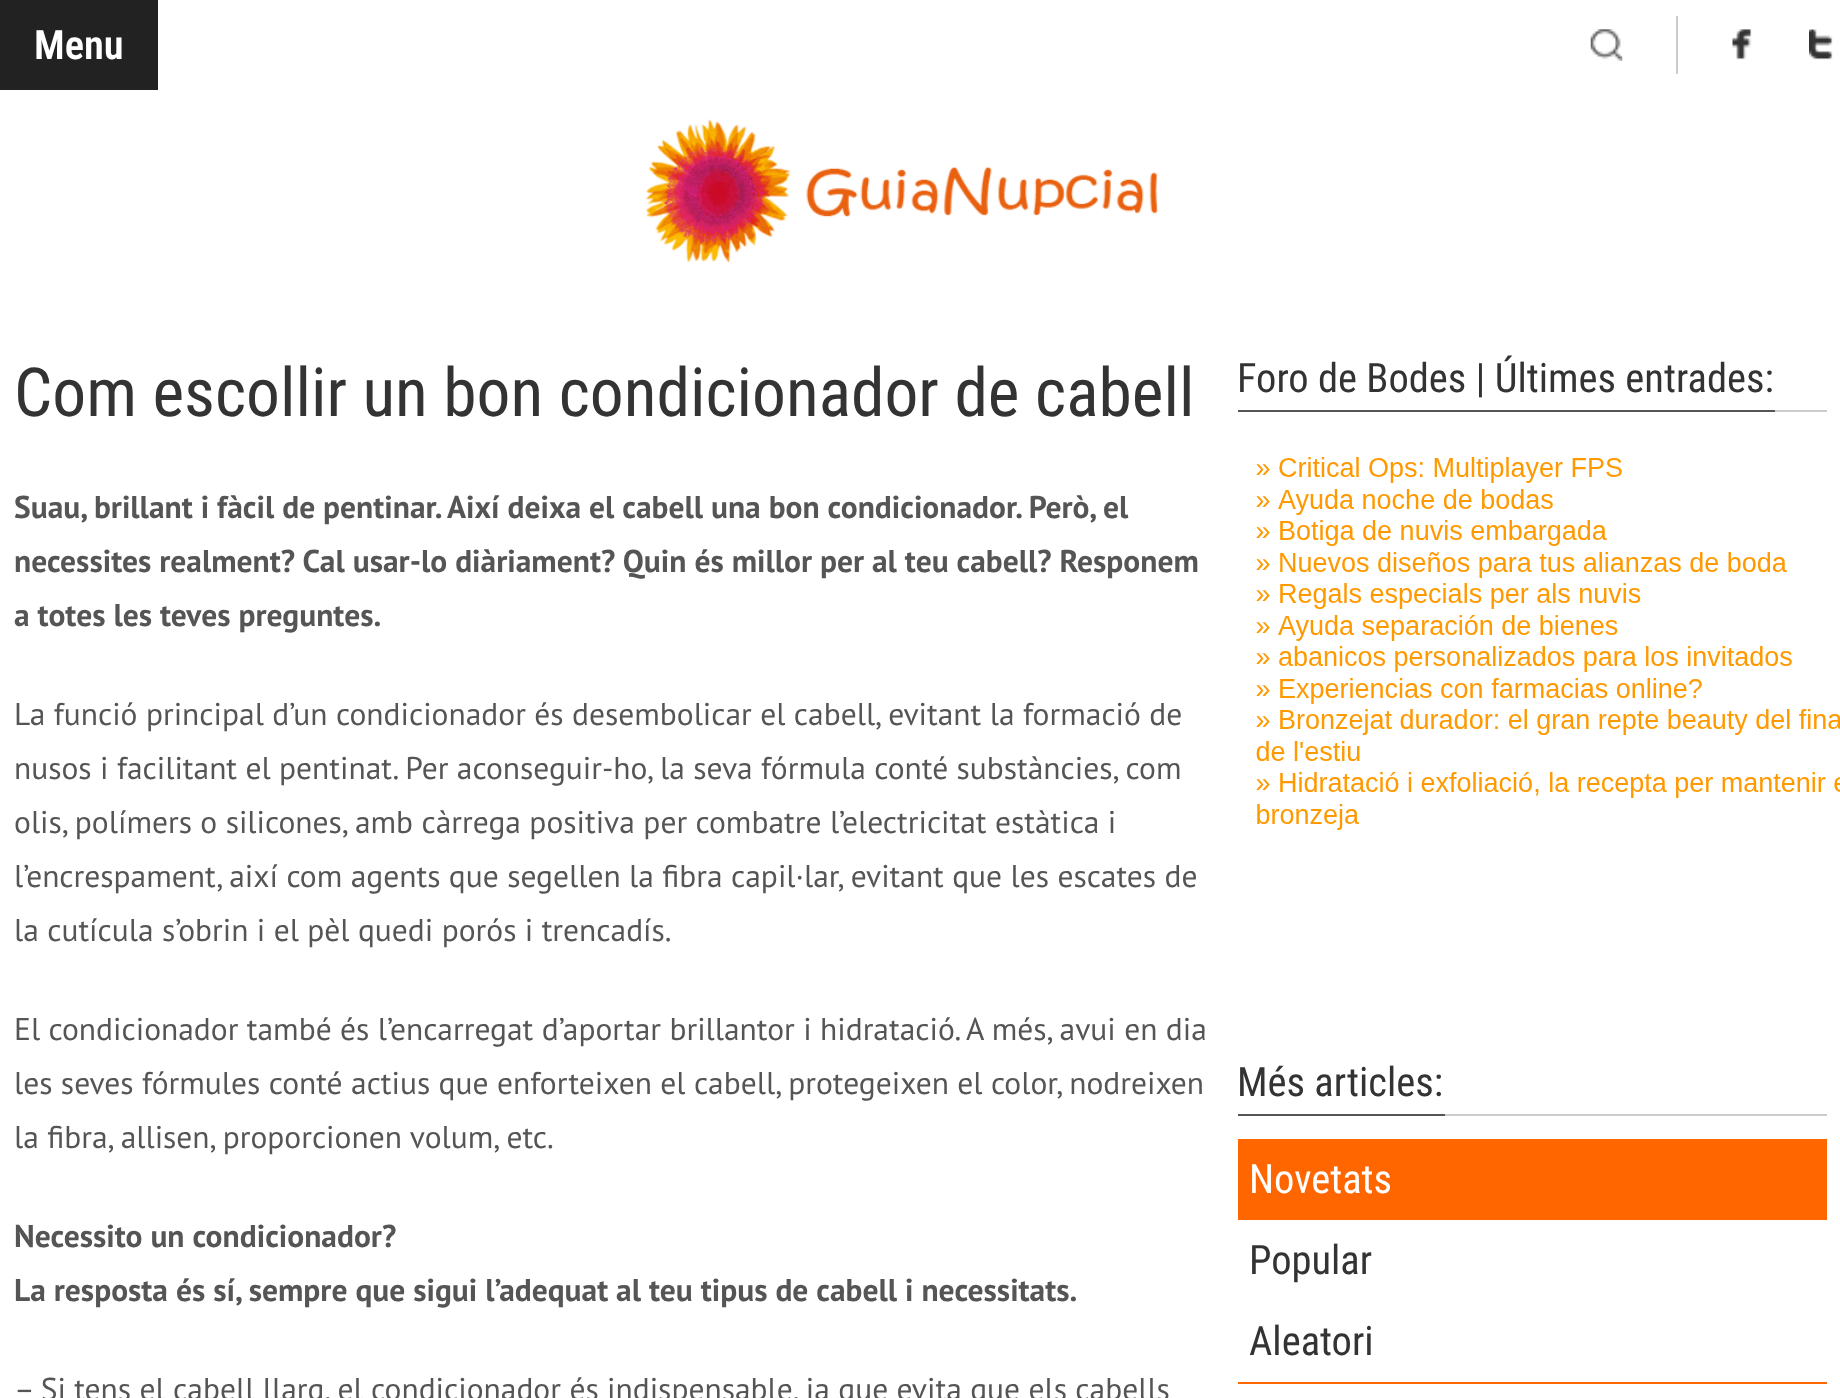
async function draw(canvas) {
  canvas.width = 1840;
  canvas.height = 1398;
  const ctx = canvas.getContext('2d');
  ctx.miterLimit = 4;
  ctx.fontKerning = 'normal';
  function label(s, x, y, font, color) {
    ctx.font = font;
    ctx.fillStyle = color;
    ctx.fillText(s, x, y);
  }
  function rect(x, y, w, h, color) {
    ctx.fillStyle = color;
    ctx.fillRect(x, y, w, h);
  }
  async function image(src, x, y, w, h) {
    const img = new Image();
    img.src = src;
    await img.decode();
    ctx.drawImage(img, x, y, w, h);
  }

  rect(0, 0, 1840, 1398, '#fff');
  rect(0, 0, 158, 90, '#222');
  label('Menu', 34, 59, '600 40.5px Roboto Condensed', '#fff');
  rect(1676, 16, 2, 58, '#ccc');
  await image('assets/img1.png', 1590, 29, 33, 32);
  await image('assets/img2.png', 1732, 29, 20, 31);
  await image('assets/img3.png', 1809, 29, 24, 31);
  await image('assets/img4.png', 645, 119, 513, 144);
  label('Com escollir un bon condicionador de cabell', 14, 416, '67.5px Roboto Condensed', '#333');
  label('Suau, brillant i fàcil de pentinar. Així deixa el cabell una bon condicionador. Però, el', 14, 518, 'bold 31.5px PT Sans', '#555');
  label('necessites realment? Cal usar-lo diàriament? Quin és millor per al teu cabell? Responem', 14, 572, 'bold 31.5px PT Sans', '#555');
  label('a totes les teves preguntes.', 14, 626, 'bold 31.5px PT Sans', '#555');
  label('La funció principal d’un condicionador és desembolicar el cabell, evitant la formació de', 14, 725, '31.5px PT Sans', '#555');
  label('nusos i facilitant el pentinat. Per aconseguir-ho, la seva fórmula conté substàncies, com', 14, 779, '31.5px PT Sans', '#555');
  label('olis, polímers o silicones, amb càrrega positiva per combatre l’electricitat estàtica i', 14, 833, '31.5px PT Sans', '#555');
  label('l’encrespament, així com agents que segellen la fibra capil·lar, evitant que les escates de', 14, 887, '31.5px PT Sans', '#555');
  label('la cutícula s’obrin i el pèl quedi porós i trencadís.', 14, 941, '31.5px PT Sans', '#555');
  label('El condicionador també és l’encarregat d’aportar brillantor i hidratació. A més, avui en dia', 14, 1040, '31.5px PT Sans', '#555');
  label('les seves fórmules conté actius que enforteixen el cabell, protegeixen el color, nodreixen', 14, 1094, '31.5px PT Sans', '#555');
  label('la fibra, allisen, proporcionen volum, etc.', 14, 1148, '31.5px PT Sans', '#555');
  label('Necessito un condicionador?', 14, 1247, 'bold 31.5px PT Sans', '#555');
  label('La resposta és sí, sempre que sigui l’adequat al teu tipus de cabell i necessitats.', 14, 1301, 'bold 31.5px PT Sans', '#555');
  label('– Si tens el cabell llarg, el condicionador és indispensable, ja que evita que els cabells', 14, 1400, '31.5px PT Sans', '#555');
  rect(1238, 410, 537, 2, '#555');
  label('Foro de Bodes | Últimes entrades:', 1237, 392, '40.5px Roboto Condensed', '#333');
  rect(1775, 410, 52, 2, '#ccc');
  await image('assets/img5.png', 1256, 457, 584, 373);
  rect(1238, 1114, 207, 2, '#555');
  label('Més articles:', 1237, 1096, '40.5px Roboto Condensed', '#333');
  rect(1445, 1114, 382, 2, '#ccc');
  rect(1238, 1139, 589, 81, '#f60');
  label('Novetats', 1249, 1193, '40.5px Roboto Condensed', '#fff');
  label('Popular', 1249, 1274, '40.5px Roboto Condensed', '#333');
  label('Aleatori', 1249, 1355, '40.5px Roboto Condensed', '#333');
  rect(1238, 1382, 589, 2, '#f60');
}

draw(document.querySelector('canvas'));
